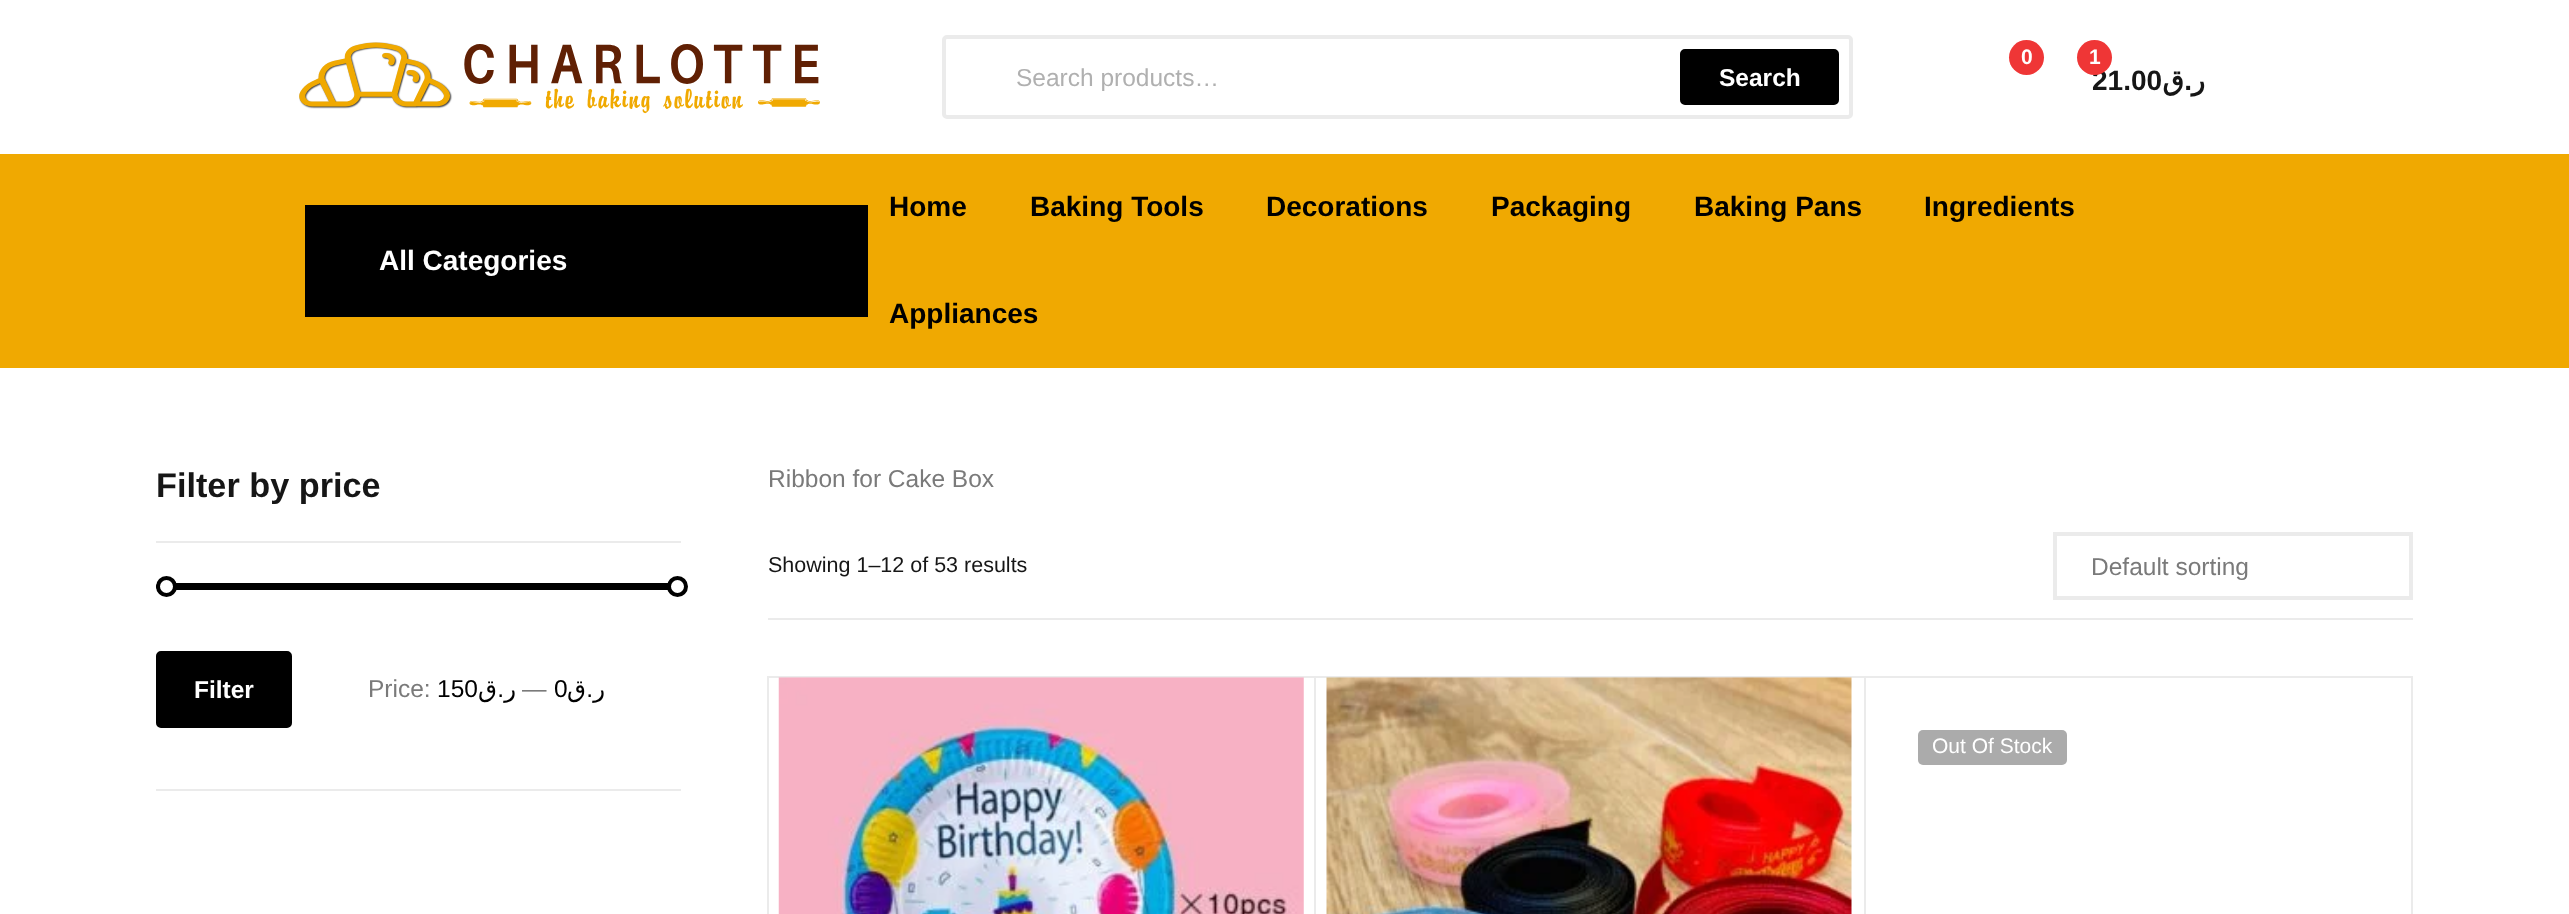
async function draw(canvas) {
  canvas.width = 2569;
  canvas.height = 914;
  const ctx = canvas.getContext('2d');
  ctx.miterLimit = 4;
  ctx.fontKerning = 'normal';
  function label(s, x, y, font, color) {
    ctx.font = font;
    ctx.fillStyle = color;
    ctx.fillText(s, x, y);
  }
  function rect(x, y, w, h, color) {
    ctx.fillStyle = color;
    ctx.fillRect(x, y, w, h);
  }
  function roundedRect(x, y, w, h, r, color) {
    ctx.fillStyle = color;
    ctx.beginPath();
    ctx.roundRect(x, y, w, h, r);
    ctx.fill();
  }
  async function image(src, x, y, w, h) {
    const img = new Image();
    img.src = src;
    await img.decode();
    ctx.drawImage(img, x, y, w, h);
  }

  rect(0, 0, 2569, 914, '#fff');
  await image('assets/img1.png', 299, 42, 521, 72);
  ctx.beginPath();
  ctx.roundRect(944, 37, 907, 80, 3);
  ctx.strokeStyle = '#ebebeb';
  ctx.lineWidth = 4;
  ctx.stroke();
  label('Search products…', 1016, 86, '24.5px Liberation Sans', '#b0b0b0');
  ctx.fillStyle = '#000';
  ctx.beginPath();
  ctx.roundRect(1682, 51, 155, 52, 3);
  ctx.fill();
  ctx.strokeStyle = '#000';
  ctx.stroke();
  label('Search', 1719, 86, 'bold 24.5px Liberation Sans', '#fff');
  ctx.fillStyle = '#ef3636';
  ctx.beginPath();
  ctx.arc(2026.5, 57.5, 17.5, 0, 2 * Math.PI);
  ctx.fill();
  label('0', 2021, 64, 'bold 21px Liberation Sans', '#fff');
  label('21.00', 2092, 90, 'bold 28px Liberation Sans', '#161616');
  ctx.fillStyle = '#ef3636';
  ctx.beginPath();
  ctx.arc(2094.5, 57.5, 17.5, 0, 2 * Math.PI);
  ctx.fill();
  label('1', 2089, 64, 'bold 21px Liberation Sans', '#fff');
  ctx.direction = 'rtl';
  label('ق', 2184, 90, 'bold 28px DejaVu Sans', '#161616');
  label('.', 2192, 90, 'bold 28px Liberation Sans', '#161616');
  label('ر', 2205, 90, 'bold 28px DejaVu Sans', '#161616');
  rect(0, 154, 2569, 214, '#f0a901');
  rect(305, 205, 563, 112, '#000');
  ctx.direction = 'ltr';
  label('All Categories', 379, 270, 'bold 28px Liberation Sans', '#fff');
  label('Home', 889, 216, 'bold 28px Liberation Sans', '#000');
  label('Baking Tools', 1030, 216, 'bold 28px Liberation Sans', '#000');
  label('Decorations', 1266, 216, 'bold 28px Liberation Sans', '#000');
  label('Packaging', 1491, 216, 'bold 28px Liberation Sans', '#000');
  label('Baking Pans', 1694, 216, 'bold 28px Liberation Sans', '#000');
  label('Ingredients', 1924, 216, 'bold 28px Liberation Sans', '#000');
  label('Appliances', 889, 323, 'bold 28px Liberation Sans', '#000');
  rect(156, 789, 525, 2, '#ebebeb');
  rect(156, 541, 525, 2, '#ebebeb');
  label('Filter by price', 156, 497, 'bold 34.25px Liberation Sans', '#161616');
  roundedRect(156, 583, 525, 7, 3.5, '#000');
  ctx.fillStyle = '#fff';
  ctx.beginPath();
  ctx.arc(166.5, 586.5, 8.5, 0, 2 * Math.PI);
  ctx.fill();
  ctx.stroke();
  ctx.beginPath();
  ctx.arc(677.5, 586.5, 8.5, 0, 2 * Math.PI);
  ctx.fill();
  ctx.stroke();
  ctx.fillStyle = '#000';
  ctx.beginPath();
  ctx.roundRect(158, 653, 132, 73, 3);
  ctx.fill();
  ctx.stroke();
  label('Filter', 194, 698, 'bold 24.5px Liberation Sans', '#fff');
  label('Price:', 368, 697, '24.5px Liberation Sans', '#7a7a7a');
  label('150', 437, 697, '24.5px Liberation Sans', '#000');
  ctx.direction = 'rtl';
  label('ق', 497, 697, '24.5px DejaVu Sans', '#000');
  label('.', 504, 697, '24.5px Liberation Sans', '#000');
  label('ر', 516, 697, '24.5px DejaVu Sans', '#000');
  ctx.direction = 'ltr';
  label('—', 522, 697, '24.5px Liberation Sans', '#7a7a7a');
  label('0', 554, 697, '24.5px Liberation Sans', '#000');
  ctx.direction = 'rtl';
  label('ق', 586, 697, '24.5px DejaVu Sans', '#000');
  label('.', 593, 697, '24.5px Liberation Sans', '#000');
  label('ر', 605, 697, '24.5px DejaVu Sans', '#000');
  ctx.direction = 'ltr';
  label('Ribbon for Cake Box', 768, 487, '24.5px Liberation Sans', '#7a7a7a');
  rect(768, 618, 1645, 2, '#ebebeb');
  label('Showing 1–12 of 53 results', 768, 572, '21.5px Liberation Sans', '#161616');
  ctx.strokeStyle = '#ebebeb';
  ctx.strokeRect(2055, 534, 356, 64);
  label('Default sorting', 2091, 575, '24.5px Liberation Sans', '#7a7a7a');
  ctx.lineWidth = 2;
  ctx.strokeRect(768, 677, 547, 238);
  await image('assets/img2.png', 778, 677, 526, 237);
  ctx.strokeRect(1315, 677, 550, 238);
  await image('assets/img3.png', 1326, 677, 526, 237);
  ctx.strokeRect(1865, 677, 547, 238);
  roundedRect(1918, 730, 149, 35, 5, '#ababab');
  label('Out Of Stock', 1932, 753, '21px Liberation Sans', '#fff');
}

draw(document.querySelector('canvas'));
